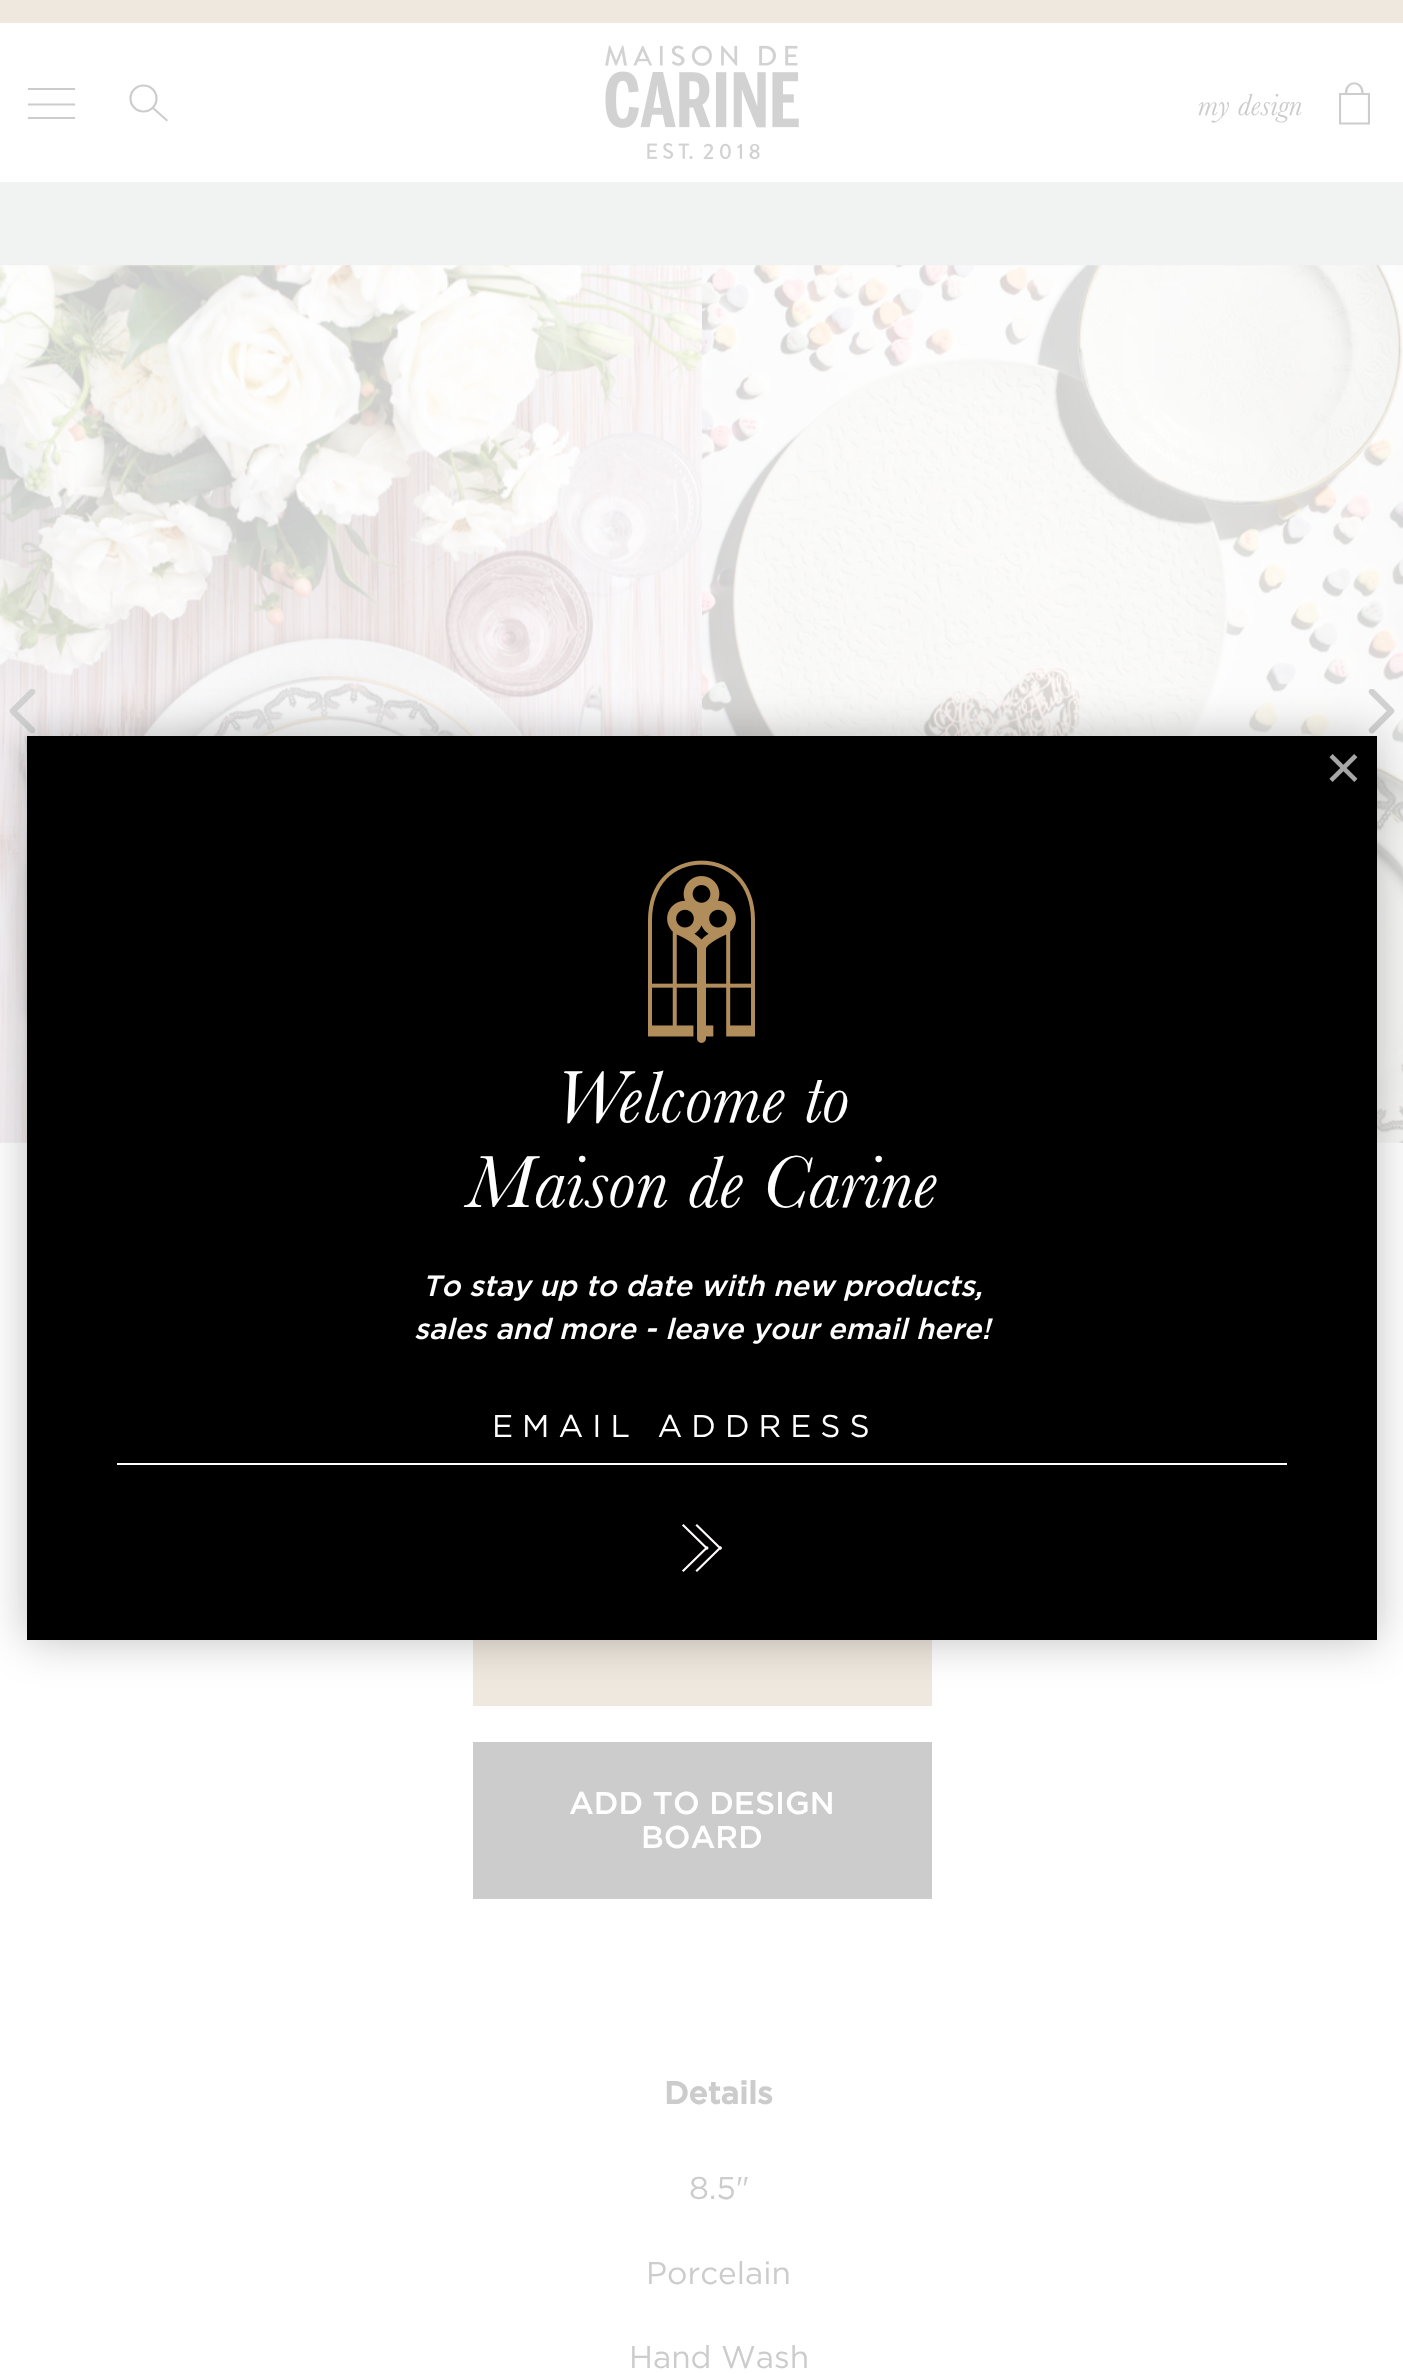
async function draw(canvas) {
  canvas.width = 1403;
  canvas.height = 2374;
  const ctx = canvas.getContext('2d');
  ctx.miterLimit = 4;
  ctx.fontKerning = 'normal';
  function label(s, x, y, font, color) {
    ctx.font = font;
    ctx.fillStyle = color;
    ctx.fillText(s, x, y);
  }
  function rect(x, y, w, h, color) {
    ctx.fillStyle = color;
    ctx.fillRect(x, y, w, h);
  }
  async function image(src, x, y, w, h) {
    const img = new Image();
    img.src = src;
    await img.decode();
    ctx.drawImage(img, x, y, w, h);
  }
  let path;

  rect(0, 0, 1403, 2374, '#fff');
  rect(0, 0, 1403, 23, '#efe8de');
  ctx.save();
  ctx.beginPath();
  ctx.rect(27, 88, 50, 31);
  ctx.clip();
  path = new Path2D('M29 89H74M29 104.5H74M29 118H74');
  ctx.strokeStyle = '#ccc';
  ctx.lineWidth = 2.2;
  ctx.lineCap = 'square';
  ctx.stroke(path);
  ctx.restore();
  await image('assets/img1.png', 605, 45, 194, 115);
  ctx.beginPath();
  ctx.arc(143.5, 98.5, 13, 0, 2 * Math.PI);
  ctx.strokeStyle = '#ccc';
  ctx.lineWidth = 2.2;
  ctx.stroke();
  path = new Path2D('M153 108L166.5 120');
  ctx.strokeStyle = '#cdcdcd';
  ctx.lineCap = 'square';
  ctx.stroke(path);
  label('my design', 1198, 115, 'italic 31.5px Baskerville', '#ccc');
  ctx.save();
  ctx.beginPath();
  ctx.rect(1339, 81, 31, 45);
  ctx.clip();
  path = new Path2D('M1340 94H1369V123.5H1340Z');
  ctx.lineCap = 'butt';
  ctx.stroke(path);
  ctx.restore();
  path = new Path2D('M1346 93C1346 80 1362.5 80 1362.5 93');
  ctx.lineCap = 'butt';
  ctx.stroke(path);
  rect(0, 182, 1403, 84, '#f0f3f2');
  await image('assets/img3.png', 0, 265, 702, 878);
  await image('assets/img4.png', 702, 265, 701, 878);
  await image('assets/img5.png', 9, 689, 27, 45);
  await image('assets/img6.png', 1368, 689, 27, 45);
  rect(473, 1640, 459, 66, '#efe8de');
  ctx.fillStyle = '#00000040';
  ctx.filter = 'blur(22.5px)';
  ctx.beginPath();
  ctx.rect(27, 736, 1350, 904);
  ctx.fill();
  ctx.filter = 'none';
  rect(27, 736, 1350, 904, '#000');
  label('×', 1325, 789, '63px Liberation Sans', '#a6a6a6');
  await image('assets/img2.png', 648, 860, 107, 183);
  label('Welcome to', 554, 1122, 'italic 76.5px Baskerville', '#fff');
  label('Maison de Carine', 467, 1207, 'italic 76.5px Baskerville', '#fff');
  label('To stay up to date with new products,', 422, 1296, 'italic 500 29.25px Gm', '#fff');
  label('sales and more - leave your email here!', 414, 1339, 'italic 500 29.25px Gm', '#fff');
  rect(117, 1463, 1170, 2, '#fff');
  ctx.letterSpacing = '9px';
  label('EMAIL ADDRESS', 492, 1437, '31.5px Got', '#fff');
  path = new Path2D('M707 1547.5L683.5 1570.5M707 1548.5L683.5 1525.5M720.5 1547.5L697 1570.5M720.5 1548.5L697 1525.5');
  ctx.strokeStyle = '#fefafa';
  ctx.lineCap = 'square';
  ctx.stroke(path);
  rect(473, 1742, 459, 157, '#ccc');
  ctx.letterSpacing = '0px';
  label('ADD TO DESIGN', 569, 1814, '500 31.5px Gm', '#fff');
  label('BOARD', 641, 1848, '500 31.5px Gm', '#fff');
  label('Details', 664, 2104, 'bold 31.5px Gm', '#ccc');
  label('8.5"', 689, 2199, '31.5px Got', '#ccc');
  label('Porcelain', 646, 2284, '31.5px Got', '#ccc');
  label('Hand Wash', 629, 2368, '31.5px Got', '#ccc');
}

draw(document.querySelector('canvas'));
